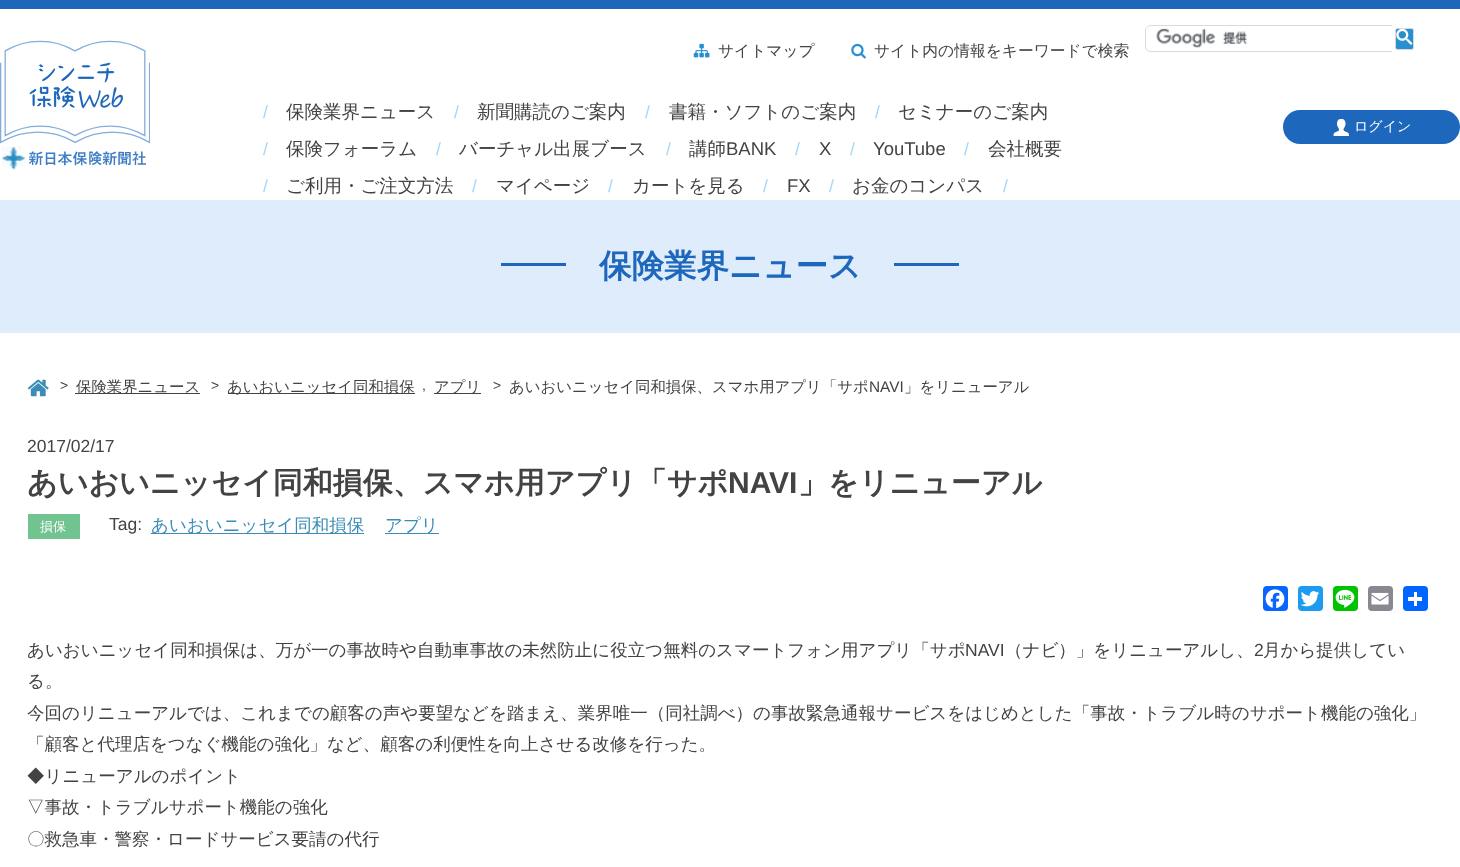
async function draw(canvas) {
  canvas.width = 1460;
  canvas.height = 867;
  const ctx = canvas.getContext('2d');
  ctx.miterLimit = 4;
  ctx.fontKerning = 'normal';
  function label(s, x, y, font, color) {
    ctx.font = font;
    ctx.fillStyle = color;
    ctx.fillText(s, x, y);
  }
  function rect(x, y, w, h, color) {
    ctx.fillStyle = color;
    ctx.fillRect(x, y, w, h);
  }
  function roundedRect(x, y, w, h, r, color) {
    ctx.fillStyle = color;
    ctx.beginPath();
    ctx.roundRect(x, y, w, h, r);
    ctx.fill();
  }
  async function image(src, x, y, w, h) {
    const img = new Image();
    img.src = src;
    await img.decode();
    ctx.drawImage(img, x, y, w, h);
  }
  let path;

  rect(0, 0, 1460, 867, '#fff');
  rect(0, 0, 1460, 9, '#1d67bb');
  await image('assets/img1.png', 0, 40, 150, 130);
  await image('assets/img2.png', 693, 43, 17, 15);
  label('サイトマップ', 718, 56, '500 15.75px WenQuanYi Zen Hei', '#434343');
  await image('assets/img3.png', 851, 43, 15, 16);
  label('サイト内の情報をキーワードで検索', 874, 56, '500 15.75px WenQuanYi Zen Hei', '#434343');
  ctx.fillStyle = '#dbd9da';
  path = new Path2D('M1151 25H1392V52H1151C1148 52 1145 50 1145 46V31C1145 28 1148 25 1151 25ZM1151 26H1392V51H1151C1148 51 1146 49 1146 46V31C1146 28 1148 26 1151 26Z');
  ctx.fill(path, 'evenodd');
  await image('assets/img4.png', 1156, 28, 92, 20);
  ctx.fillStyle = '#2790d1';
  ctx.beginPath();
  ctx.roundRect(1395.5, 28.5, 18, 21, 2);
  ctx.fill();
  ctx.strokeStyle = '#dbd9da';
  ctx.stroke();
  await image('assets/img5.png', 1396, 29, 17, 16);
  label('/', 263, 118, '17.5px Liberation Sans', '#a2d7f9');
  label('保険業界ニュース', 286, 118, '500 18.5px WenQuanYi Zen Hei', '#434343');
  label('/', 454, 118, '17.5px Liberation Sans', '#a2d7f9');
  label('新聞購読のご案内', 477, 118, '500 18.5px WenQuanYi Zen Hei', '#434343');
  label('/', 645, 118, '17.5px Liberation Sans', '#a2d7f9');
  label('書籍・ソフトのご案内', 669, 118, '500 18.5px WenQuanYi Zen Hei', '#434343');
  label('/', 875, 118, '17.5px Liberation Sans', '#a2d7f9');
  label('セミナーのご案内', 898, 118, '500 18.5px WenQuanYi Zen Hei', '#434343');
  label('/', 263, 155, '17.5px Liberation Sans', '#a2d7f9');
  label('保険フォーラム', 286, 155, '500 18.5px WenQuanYi Zen Hei', '#434343');
  label('/', 436, 155, '17.5px Liberation Sans', '#a2d7f9');
  label('バーチャル出展ブース', 459, 155, '500 18.5px WenQuanYi Zen Hei', '#434343');
  label('/', 666, 155, '17.5px Liberation Sans', '#a2d7f9');
  label('講師', 689, 155, '500 18.5px WenQuanYi Zen Hei', '#434343');
  label('BANK', 726, 155, '18.5px Liberation Sans', '#434343');
  label('/', 795, 155, '17.5px Liberation Sans', '#a2d7f9');
  label('X', 819, 155, '18.5px Liberation Sans', '#434343');
  label('/', 850, 155, '17.5px Liberation Sans', '#a2d7f9');
  label('YouTube', 873, 155, '18.5px Liberation Sans', '#434343');
  label('/', 964, 155, '17.5px Liberation Sans', '#a2d7f9');
  label('会社概要', 988, 155, '500 18.5px WenQuanYi Zen Hei', '#434343');
  label('/', 263, 192, '17.5px Liberation Sans', '#a2d7f9');
  label('ご利用・ご注文方法', 286, 192, '500 18.5px WenQuanYi Zen Hei', '#434343');
  label('/', 472, 192, '17.5px Liberation Sans', '#a2d7f9');
  label('マイページ', 496, 192, '500 18.5px WenQuanYi Zen Hei', '#434343');
  label('/', 608, 192, '17.5px Liberation Sans', '#a2d7f9');
  label('カートを見る', 632, 192, '500 18.5px WenQuanYi Zen Hei', '#434343');
  label('/', 763, 192, '17.5px Liberation Sans', '#a2d7f9');
  label('FX', 787, 192, '18.5px Liberation Sans', '#434343');
  label('/', 829, 192, '17.5px Liberation Sans', '#a2d7f9');
  label('お金のコンパス', 852, 192, '500 18.5px WenQuanYi Zen Hei', '#434343');
  label('/', 1003, 192, '17.5px Liberation Sans', '#a2d7f9');
  roundedRect(1283, 110, 177, 34, 17, '#1d67bc');
  await image('assets/img6.png', 1333, 119, 16, 17);
  label('ログイン', 1354, 131, '500 14px WenQuanYi Zen Hei', '#fff');
  rect(0, 200, 1460, 133, '#dfecfb');
  rect(501, 263, 458, 3, '#1d67bc');
  rect(566, 263, 328, 3, '#dfecfb');
  label('保険業界ニュース', 599, 277, 'bold 32.5px WenQuanYi Zen Hei', '#1d67bc');
  await image('assets/img7.png', 27, 379, 22, 18);
  label('>', 60, 390, '14px Liberation Sans', '#434343');
  rect(75, 393, 125, 1, '#434343');
  label('保険業界ニュース', 76, 392, '500 15.4px WenQuanYi Zen Hei', '#434343');
  label('>', 211, 390, '14px Liberation Sans', '#434343');
  rect(228, 393, 187, 1, '#434343');
  label('あいおいニッセイ同和損保', 227, 392, '500 15.4px WenQuanYi Zen Hei', '#434343');
  label(',', 422, 390, '14px Liberation Sans', '#434343');
  rect(434, 393, 47, 1, '#434343');
  label('アプリ', 434, 392, '500 15.4px WenQuanYi Zen Hei', '#434343');
  label('>', 493, 390, '14px Liberation Sans', '#434343');
  label('あいおいニッセイ同和損保、スマホ用アプリ「サポ', 509, 392, '500 15.4px WenQuanYi Zen Hei', '#434343');
  label('NAVI', 869, 392, '15.4px Liberation Sans', '#434343');
  label('」をリニューアル', 904, 392, '500 15.4px WenQuanYi Zen Hei', '#434343');
  label('2017/02/17', 27, 452, '17.5px Liberation Sans', '#434343');
  label('あいおいニッセイ同和損保、スマホ用アプリ「サポ', 27, 493, 'bold 30px WenQuanYi Zen Hei', '#434343');
  label('NAVI', 728, 493, 'bold 30px Liberation Sans', '#434343');
  label('」をリニューアル', 798, 493, 'bold 30px WenQuanYi Zen Hei', '#434343');
  rect(28, 514, 52, 25, '#71c490');
  label('損保', 40, 531, '500 13px WenQuanYi Zen Hei', '#fff');
  label('Tag:', 109, 530, '17.5px Liberation Sans', '#434343');
  rect(151, 533, 213, 1, '#3b8cb6');
  label('あいおいニッセイ同和損保', 151, 531, '500 17.5px WenQuanYi Zen Hei', '#3b8cb6');
  rect(385, 533, 54, 1, '#3b8cb6');
  label('アプリ', 385, 531, '500 17.5px WenQuanYi Zen Hei', '#3b8cb6');
  roundedRect(1263, 586, 25, 25, 4, '#0866ff');
  await image('assets/img8.png', 1265, 589, 20, 19);
  roundedRect(1298, 586, 25, 25, 4, '#1d9bf0');
  await image('assets/img9.png', 1300, 591, 20, 16);
  roundedRect(1333, 586, 25, 25, 4, '#00c300');
  await image('assets/img10.png', 1335, 589, 20, 19);
  roundedRect(1368, 586, 25, 25, 4, '#888990');
  await image('assets/img11.png', 1371, 592, 18, 13);
  roundedRect(1403, 586, 25, 25, 4, '#0166ff');
  rect(1414, 592, 3, 14, '#fff');
  rect(1408, 597, 14, 4, '#fff');
  label('あいおいニッセイ同和損保は、万が一の事故時や自動車事故の未然防止に役立つ無料のスマートフォン用アプリ「サポ', 27, 656, '500 17.5px WenQuanYi Zen Hei', '#434343');
  label('NAVI', 965, 656, '17.5px Liberation Sans', '#434343');
  label('（ナビ）」をリニューアルし、', 1005, 656, '500 17.5px WenQuanYi Zen Hei', '#434343');
  label('2', 1254, 656, '17.5px Liberation Sans', '#434343');
  label('月から提供してい', 1263, 656, '500 17.5px WenQuanYi Zen Hei', '#434343');
  label('る。', 27, 687, '500 17.5px WenQuanYi Zen Hei', '#434343');
  label('今回のリニューアルでは、これまでの顧客の声や要望などを踏まえ、業界唯一（同社調べ）の事故緊急通報サービスをはじめとした「事故・トラブル時のサポート機能の強化」', 27, 719, '500 17.5px WenQuanYi Zen Hei', '#434343');
  label('「顧客と代理店をつなぐ機能の強化」など、顧客の利便性を向上させる改修を行った。', 27, 750, '500 17.5px WenQuanYi Zen Hei', '#434343');
  label('◆リニューアルのポイント', 27, 782, '500 17.5px WenQuanYi Zen Hei', '#434343');
  label('▽事故・トラブルサポート機能の強化', 27, 813, '500 17.5px WenQuanYi Zen Hei', '#434343');
  label('〇救急車・警察・ロードサービス要請の代行', 27, 845, '500 17.5px WenQuanYi Zen Hei', '#434343');
}

draw(document.querySelector('canvas'));
